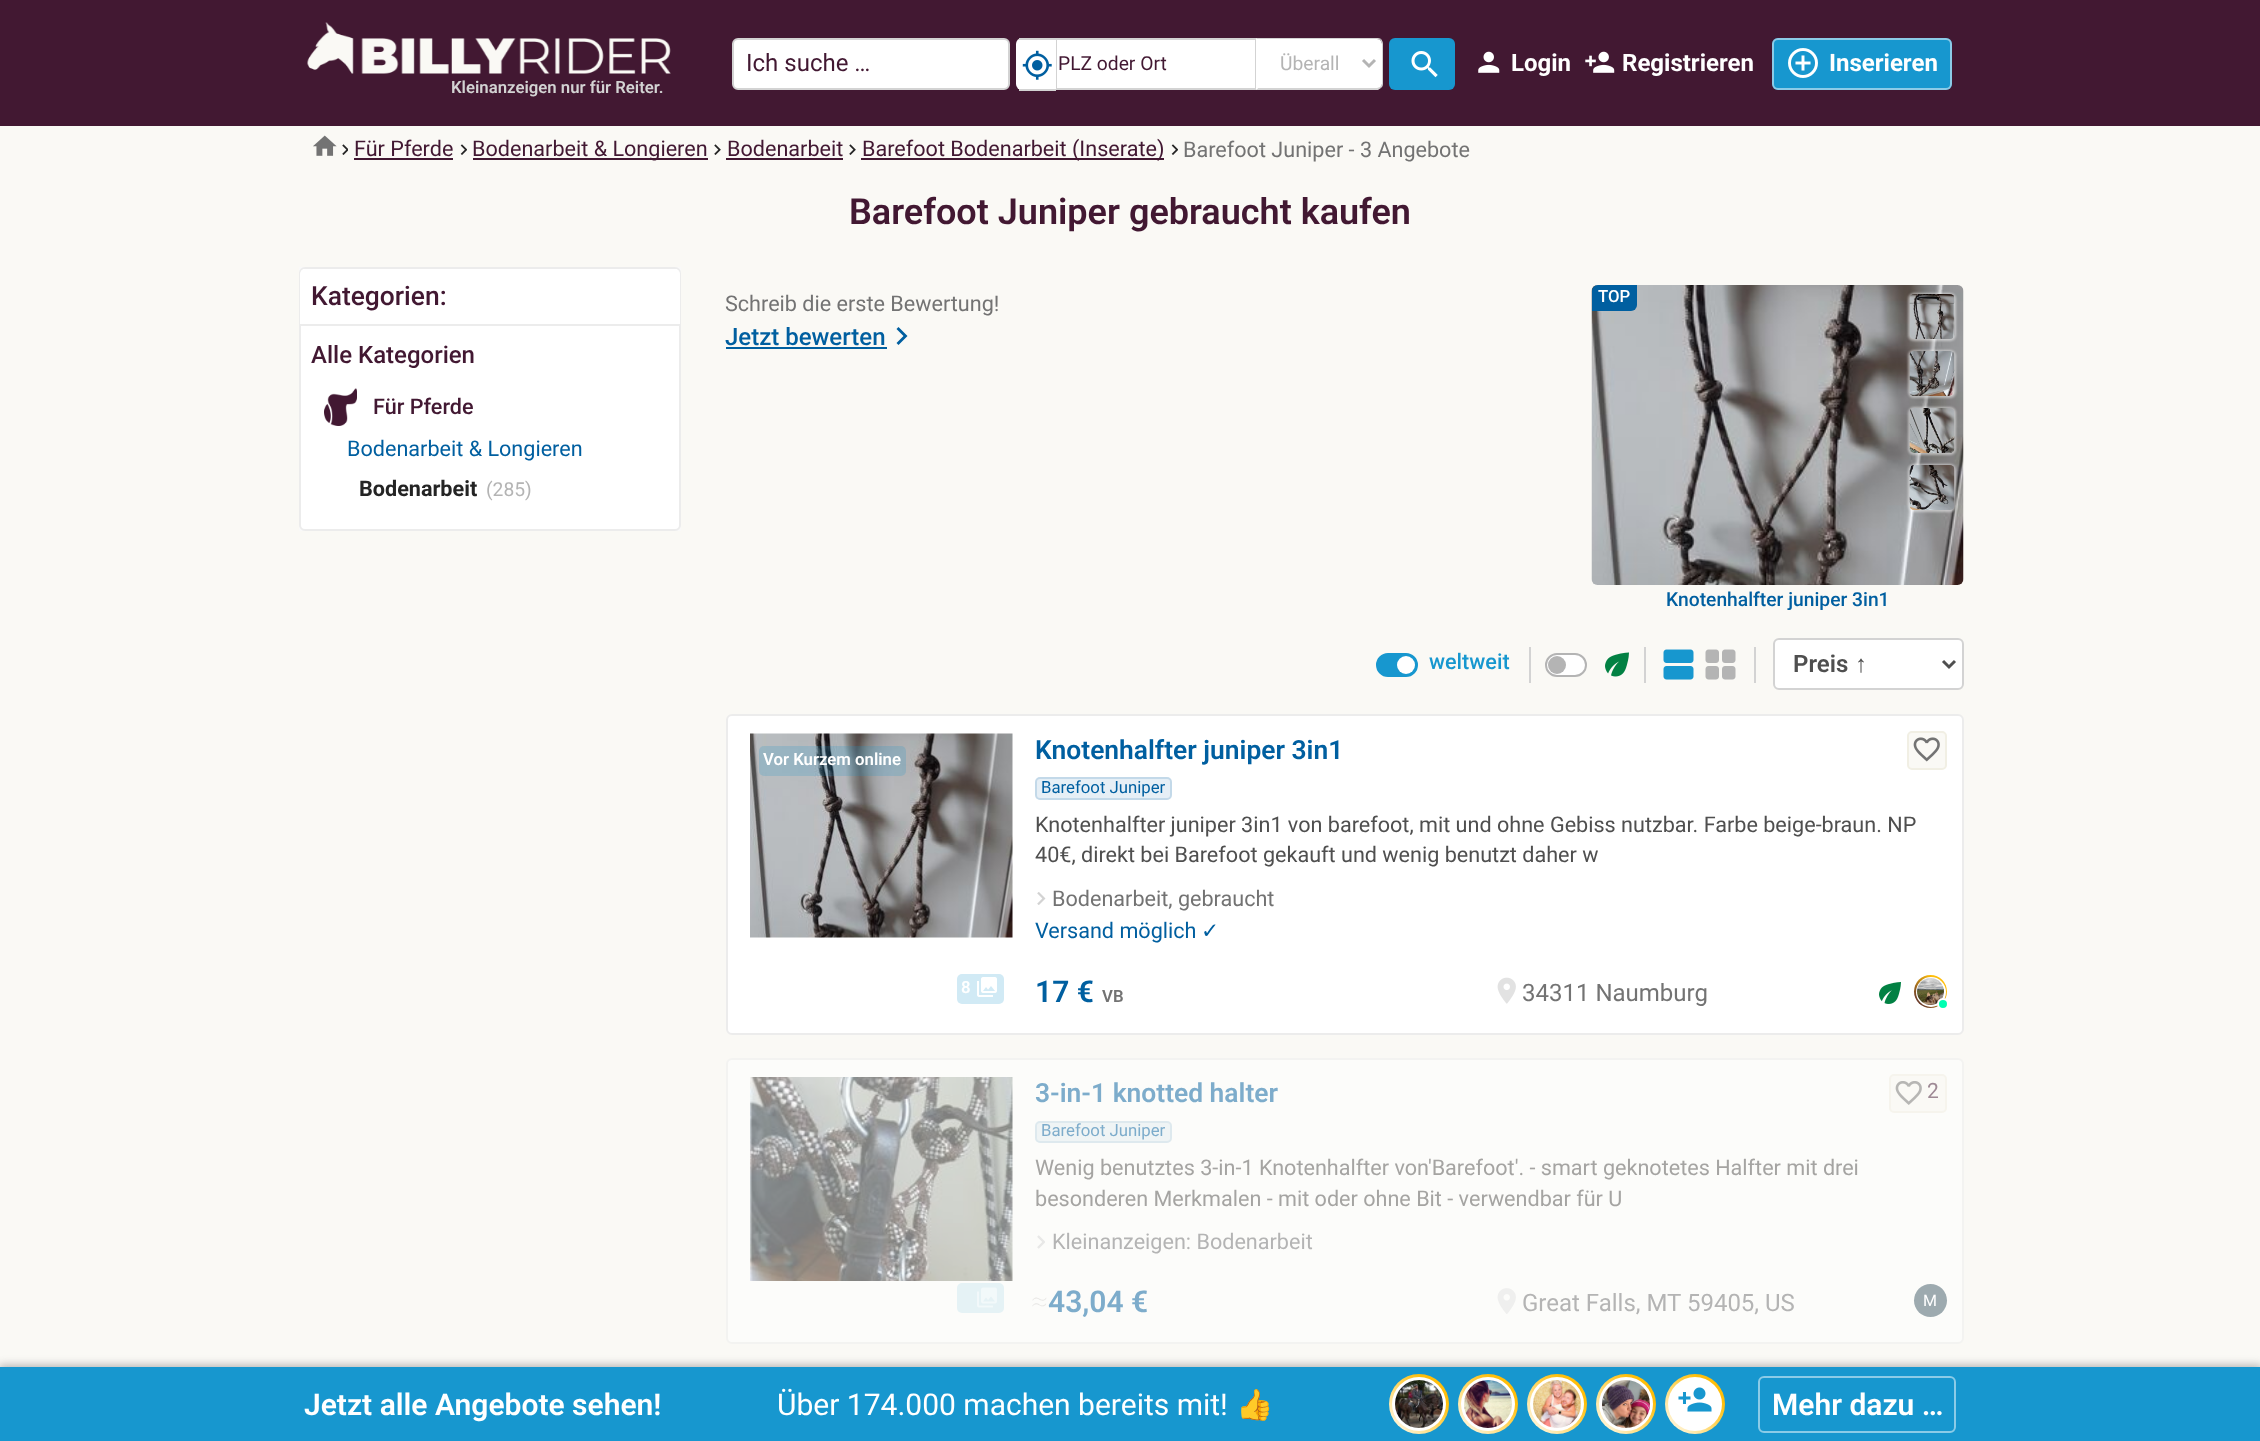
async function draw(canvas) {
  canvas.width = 2260;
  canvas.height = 1441;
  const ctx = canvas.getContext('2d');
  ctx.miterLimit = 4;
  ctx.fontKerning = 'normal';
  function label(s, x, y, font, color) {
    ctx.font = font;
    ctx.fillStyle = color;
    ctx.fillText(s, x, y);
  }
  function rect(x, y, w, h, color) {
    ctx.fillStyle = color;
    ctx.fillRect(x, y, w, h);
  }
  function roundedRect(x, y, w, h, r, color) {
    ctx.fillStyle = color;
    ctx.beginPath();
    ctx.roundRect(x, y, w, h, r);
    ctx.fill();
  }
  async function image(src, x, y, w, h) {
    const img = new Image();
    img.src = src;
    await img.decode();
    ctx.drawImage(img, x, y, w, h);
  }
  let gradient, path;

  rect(0, 0, 2260, 1441, '#faf9f5');
  rect(0, 0, 2260, 126, '#421832');
  ctx.fillStyle = '#fff';
  ctx.beginPath();
  ctx.roundRect(733, 39, 276, 50, 5);
  ctx.fill();
  ctx.strokeStyle = '#d3d3d3';
  ctx.lineWidth = 2;
  ctx.stroke();
  label('Ich suche …', 746, 71, '24px Roboto', '#421832');
  ctx.fillStyle = '#fff';
  ctx.beginPath();
  ctx.rect(1056, 39, 200, 50);
  ctx.fill();
  ctx.stroke();
  ctx.beginPath();
  ctx.roundRect(1016, 38, 40, 52, [6, 0, 0, 6]);
  ctx.fill();
  rect(1019, 38, 37, 2, '#d3d3d3');
  rect(1019, 89, 37, 2, '#d3d3d3');
  await image('assets/img1.png', 1022, 50, 30, 30);
  label('PLZ oder Ort', 1058, 70, '19.25px Roboto', '#421832');
  ctx.fillStyle = '#fff';
  ctx.beginPath();
  ctx.roundRect(1257, 39, 125, 50, [0, 5, 5, 0]);
  ctx.fill();
  ctx.fillStyle = '#d3d3d3';
  path = new Path2D('M1256 38L1257 39H1377L1380 40L1381 39C1380 38 1378 38 1377 38Z');
  ctx.fill(path);
  path = new Path2D('M1381 39C1382 40 1383 42 1383 44V84C1383 86 1382 87 1381 88L1380 87L1382 84V43L1380 40Z');
  ctx.fill(path);
  path = new Path2D('M1256 90H1378L1381 88L1380 87L1377 88H1258Z');
  ctx.fill(path);
  ctx.fillStyle = '#fff';
  path = new Path2D('M1257 39L1256 38V90L1258 88H1257Z');
  ctx.fill(path);
  path = new Path2D('M1363 60L1369 66L1375 60');
  ctx.strokeStyle = '#b4b4b4';
  ctx.lineWidth = 3;
  ctx.stroke(path);
  label('Überall', 1280, 70, '19.25px Roboto', '#b4b4b4');
  roundedRect(1389, 38, 66, 52, 6, '#1797cf');
  await image('assets/img2.png', 1411, 51, 27, 27);
  await image('assets/img3.png', 1478, 51, 22, 22);
  label('Login', 1511, 71, 'bold 24px Roboto', '#fff');
  await image('assets/img4.png', 1585, 51, 30, 22);
  label('Registrieren', 1622, 71, 'bold 24px Roboto', '#fff');
  roundedRect(1772, 38, 180, 52, 6, '#1797cf');
  ctx.beginPath();
  ctx.roundRect(1773, 39, 178, 50, 5);
  ctx.strokeStyle = '#ffffff80';
  ctx.lineWidth = 2;
  ctx.stroke();
  await image('assets/img5.png', 1788, 48, 30, 30);
  label('Inserieren', 1829, 71, 'bold 24px Roboto', '#fff');
  await image('assets/img6.png', 307, 22, 364, 52);
  label('Kleinanzeigen nur für Reiter.', 451, 93, '600 16.75px Roboto', '#d3d3d3');
  await image('assets/img7.png', 313, 135, 24, 21);
  await image('assets/img8.png', 342, 144, 6, 11);
  label('Für Pferde', 354, 156, '21.6px Roboto', '#421832');
  rect(354, 158, 99, 2, '#421832');
  await image('assets/img9.png', 460, 144, 7, 11);
  rect(473, 158, 235, 2, '#421832');
  label('Bodenarbeit & Longieren', 472, 156, '21.6px Roboto', '#421832');
  await image('assets/img10.png', 714, 144, 7, 11);
  label('Bodenarbeit', 727, 156, '21.6px Roboto', '#421832');
  rect(726, 158, 117, 2, '#421832');
  await image('assets/img10.png', 849, 144, 7, 11);
  rect(861, 158, 303, 2, '#421832');
  label('Barefoot Bodenarbeit (Inserate)', 862, 156, '21.6px Roboto', '#421832');
  await image('assets/img9.png', 1171, 144, 7, 11);
  label('Barefoot Juniper - 3 Angebote', 1183, 157, '21.6px Roboto', '#737373');
  label('Barefoot Juniper gebraucht kaufen', 849, 224, '600 36px Roboto', '#421832');
  rect(299, 267, 382, 264, '#f9f9f9');
  ctx.fillStyle = '#fff';
  ctx.beginPath();
  ctx.roundRect(300, 268, 380, 262, 5);
  ctx.fill();
  ctx.strokeStyle = '#ececec';
  ctx.stroke();
  ctx.beginPath();
  ctx.roundRect(300, 269, 380, 57, [5, 5, 0, 0]);
  ctx.fill();
  rect(300, 324, 380, 2, '#ececec');
  label('Kategorien:', 311, 305, '500 26.4px Roboto', '#421832');
  label('Alle Kategorien', 311, 363, '500 24px Roboto', '#421832');
  await image('assets/img11.png', 324, 388, 33, 38);
  label('Für Pferde', 373, 414, '500 21.6px Roboto', '#421832');
  label('Bodenarbeit & Longieren', 347, 456, '21.6px Roboto', '#005fa0');
  label('Bodenarbeit', 359, 496, 'bold 21.6px Roboto', '#242424');
  label('(285)', 486, 496, '19.25px Roboto', '#b4b4b4');
  label('Schreib die erste Bewertung!', 725, 311, '21.6px Roboto', '#737373');
  label('Jetzt bewerten', 725, 345, '500 24px Roboto', '#005fa0');
  rect(726, 347, 161, 2, '#005fa0');
  path = new Path2D('M898.5 327L907.5 336L898.5 345L896.5 343L903.5 336L896.5 329Z');
  ctx.fill(path);
  await image('assets/img12.png', 1591, 285, 373, 300);
  ctx.fillStyle = '#ffffff80';
  ctx.filter = 'blur(1px)';
  ctx.beginPath();
  ctx.roundRect(1908, 293, 48, 48, 6);
  ctx.fill();
  ctx.filter = 'none';
  await image('assets/img13.png', 1909, 294, 46, 45);
  ctx.filter = 'blur(1px)';
  ctx.beginPath();
  ctx.roundRect(1908, 350, 48, 48, 6);
  ctx.fill();
  ctx.filter = 'none';
  await image('assets/img14.png', 1909, 351, 46, 45);
  ctx.filter = 'blur(1px)';
  ctx.beginPath();
  ctx.roundRect(1908, 407, 48, 48, 6);
  ctx.fill();
  ctx.filter = 'none';
  await image('assets/img15.png', 1909, 408, 46, 45);
  ctx.filter = 'blur(1px)';
  ctx.beginPath();
  ctx.roundRect(1908, 464, 48, 48, 6);
  ctx.fill();
  ctx.filter = 'none';
  await image('assets/img16.png', 1909, 465, 46, 45);
  ctx.fillStyle = '#005fa0';
  ctx.beginPath();
  ctx.roundRect(1592, 285, 45, 26, [6, 0, 6, 0]);
  ctx.fill();
  label('TOP', 1598, 302, '500 16.75px Roboto', '#fff');
  label('Knotenhalfter juniper 3in1', 1666, 606, '500 19.25px Roboto', '#005fa0');
  rect(1529, 647, 2, 36, '#d3d3d3');
  ctx.fillStyle = '#1797cf';
  ctx.beginPath();
  ctx.roundRect(1377, 654, 40, 22, 11);
  ctx.fill();
  ctx.strokeStyle = '#1797cf';
  ctx.stroke();
  label('weltweit', 1429, 669, '500 21.6px Roboto', '#1797cf');
  ctx.fillStyle = '#fff';
  ctx.beginPath();
  ctx.arc(1406, 665, 9, 0, 2 * Math.PI);
  ctx.fill();
  rect(1644, 647, 2, 36, '#d3d3d3');
  ctx.fillStyle = '#fff';
  ctx.beginPath();
  ctx.roundRect(1546, 654, 40, 22, 11);
  ctx.fill();
  ctx.strokeStyle = '#b4b4b4';
  ctx.stroke();
  await image('assets/img17.png', 1605, 652, 24, 25);
  ctx.fillStyle = '#b4b4b4';
  ctx.beginPath();
  ctx.arc(1557, 665, 9, 0, 2 * Math.PI);
  ctx.fill();
  rect(1754, 647, 2, 36, '#d3d3d3');
  await image('assets/img18.png', 1663, 649, 31, 31);
  await image('assets/img19.png', 1705, 649, 31, 31);
  ctx.fillStyle = '#fff';
  ctx.beginPath();
  ctx.roundRect(1774, 639, 189, 50, 5);
  ctx.fill();
  ctx.strokeStyle = '#d3d3d3';
  ctx.stroke();
  path = new Path2D('M1943 661L1949 667L1955 661');
  ctx.strokeStyle = '#4f4f4f';
  ctx.lineWidth = 3;
  ctx.stroke(path);
  label('Preis', 1793, 672, '600 24px Roboto', '#4f4f4f');
  label('↑', 1855, 672, 'bold 24px Liberation Sans', '#4f4f4f');
  ctx.fillStyle = '#fff';
  ctx.beginPath();
  ctx.roundRect(727, 715, 1236, 319, 5);
  ctx.fill();
  ctx.strokeStyle = '#ececec';
  ctx.lineWidth = 2;
  ctx.stroke();
  await image('assets/img20.png', 750, 733, 263, 205);
  roundedRect(759, 746, 147, 30, 5, '#1797cf33');
  label('Vor Kurzem online', 763, 765, '600 16.75px Roboto', '#fff');
  roundedRect(957, 974, 47, 30, 5, '#d1eaf5');
  label('8', 961, 993, '600 16.75px Roboto', '#fff');
  await image('assets/img21.png', 977, 977, 20, 20);
  label('Knotenhalfter juniper 3in1', 1035, 759, '600 26.4px Roboto', '#005fa0');
  roundedRect(1035, 777, 137, 23, 5, '#e6eff6');
  ctx.beginPath();
  ctx.roundRect(1036, 778, 135, 21, 4);
  ctx.strokeStyle = '#005fa026';
  ctx.stroke();
  label('Barefoot Juniper', 1041, 793, '16.75px Roboto', '#005fa0');
  label('Knotenhalfter juniper 3in1 von barefoot, mit und ohne Gebiss nutzbar. Farbe beige-braun. NP', 1035, 832, '21.6px Roboto', '#4f4f4f');
  label('40€, direkt bei Barefoot gekauft und wenig benutzt daher w', 1035, 862, '21.6px Roboto', '#4f4f4f');
  await image('assets/img22.png', 1037, 892, 9, 13);
  label('Bodenarbeit, gebraucht', 1052, 906, '21.6px Roboto', '#737373');
  label('Versand möglich', 1035, 938, '21.6px Roboto', '#005fa0');
  label('✓', 1201, 938, '21.6px DejaVu Sans', '#005fa0');
  ctx.fillStyle = '#faf9f5';
  ctx.beginPath();
  ctx.roundRect(1908, 732, 38, 37, 4);
  ctx.fill();
  ctx.strokeStyle = '#f1efe4';
  ctx.stroke();
  await image('assets/img23.png', 1913, 737, 27, 25);
  label('17 €', 1035, 1002, '600 30px Roboto', '#005fa0');
  label('VB', 1102, 1002, '600 16.75px Roboto', '#737373');
  await image('assets/img24.png', 1497, 977, 19, 27);
  label('34311 Naumburg', 1522, 1001, '24px Roboto', '#737373');
  await image('assets/img25.png', 1879, 982, 22, 22);
  gradient = ctx.createLinearGradient(1914, 1008, 1947, 975);
  gradient.addColorStop(0, '#421832');
  gradient.addColorStop(0.75, '#ffbe0a');
  ctx.fillStyle = gradient;
  ctx.beginPath();
  ctx.arc(1930.5, 991.5, 16.5, 0, 2 * Math.PI);
  ctx.fill();
  ctx.fillStyle = '#fff';
  ctx.beginPath();
  ctx.arc(1931, 992, 15, 0, 2 * Math.PI);
  ctx.fill();
  await image('assets/img26.png', 1917, 978, 27, 27);
  ctx.fillStyle = '#00ffb2';
  ctx.beginPath();
  ctx.arc(1943, 1004, 5, 0, 2 * Math.PI);
  ctx.fill();
  ctx.strokeStyle = '#fff';
  ctx.stroke();
  ctx.fillStyle = '#fcfcfa';
  ctx.beginPath();
  ctx.roundRect(727, 1059, 1236, 284, 5);
  ctx.fill();
  ctx.strokeStyle = '#f3f3f1';
  ctx.stroke();
  await image('assets/img27.png', 750, 1077, 263, 204);
  roundedRect(957, 1283, 47, 30, 5, '#e5f2f5');
  await image('assets/img28.png', 977, 1287, 20, 21);
  label('3-in-1 knotted halter', 1035, 1102, '600 26.4px Roboto', '#7daccb');
  roundedRect(1035, 1121, 137, 22, 5, '#eff4f5');
  ctx.beginPath();
  ctx.roundRect(1036, 1122, 135, 20, 4);
  ctx.strokeStyle = '#7daccb26';
  ctx.stroke();
  label('Barefoot Juniper', 1041, 1136, '16.75px Roboto', '#7daccb');
  label('Wenig benutztes 3-in-1 Knotenhalfter von\'Barefoot\'. - smart geknotetes Halfter mit drei', 1035, 1175, '21.6px Roboto', '#a5a4a2');
  label('besonderen Merkmalen - mit oder ohne Bit - verwendbar für U', 1035, 1206, '21.6px Roboto', '#a5a4a2');
  await image('assets/img29.png', 1037, 1235, 8, 14);
  label('Kleinanzeigen: Bodenarbeit', 1052, 1249, '21.6px Roboto', '#b4b4b4');
  ctx.fillStyle = '#faf9f5';
  ctx.beginPath();
  ctx.roundRect(1890, 1075, 56, 37, 4);
  ctx.fill();
  ctx.strokeStyle = '#f6f4ed';
  ctx.stroke();
  await image('assets/img30.png', 1895, 1081, 27, 24);
  label('2', 1927, 1098, '21px Roboto', '#9e8994');
  label('≈', 1031, 1312, '100 30px Roboto', '#e7e6e4');
  label('43,04 €', 1048, 1312, '600 30px Roboto', '#7daccb');
  await image('assets/img31.png', 1497, 1288, 19, 26);
  label('Great Falls, MT 59405, US', 1522, 1311, '24px Roboto', '#b4b4b4');
  ctx.fillStyle = '#9daaaf';
  ctx.beginPath();
  ctx.arc(1930.5, 1300.5, 16.5, 0, 2 * Math.PI);
  ctx.fill();
  label('M', 1923, 1306, '16px Roboto', '#fff');
  ctx.fillStyle = '#b4b4b4';
  ctx.filter = 'blur(4px)';
  ctx.beginPath();
  ctx.rect(-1, 1365, 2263, 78);
  ctx.fill();
  ctx.filter = 'none';
  rect(0, 1367, 2260, 74, '#1797cf');
  label('Jetzt alle Angebote sehen!', 304, 1415, '600 30px Roboto', '#fff');
  label('Über 174.000 machen bereits mit!', 777, 1415, '30px Roboto', '#fff');
  label('👍', 1236, 1415, '30px Noto Color Emoji', '#fff');
  gradient = ctx.createLinearGradient(1389, 1434, 1449, 1374);
  gradient.addColorStop(0, '#fff');
  gradient.addColorStop(0.75, '#ffbe0a');
  ctx.fillStyle = gradient;
  ctx.beginPath();
  ctx.arc(1419, 1404, 30, 0, 2 * Math.PI);
  ctx.fill();
  ctx.fillStyle = '#fff';
  ctx.beginPath();
  ctx.arc(1419, 1404, 27, 0, 2 * Math.PI);
  ctx.fill();
  await image('assets/img32.png', 1395, 1380, 48, 48);
  gradient = ctx.createLinearGradient(1458, 1434, 1518, 1374);
  gradient.addColorStop(0, '#fff');
  gradient.addColorStop(0.75, '#ffbe0a');
  ctx.fillStyle = gradient;
  ctx.beginPath();
  ctx.arc(1488, 1404, 30, 0, 2 * Math.PI);
  ctx.fill();
  ctx.fillStyle = '#fff';
  ctx.beginPath();
  ctx.arc(1488, 1404, 27, 0, 2 * Math.PI);
  ctx.fill();
  await image('assets/img33.png', 1464, 1380, 48, 48);
  gradient = ctx.createLinearGradient(1527, 1434, 1587, 1374);
  gradient.addColorStop(0, '#fff');
  gradient.addColorStop(0.75, '#ffbe0a');
  ctx.fillStyle = gradient;
  ctx.beginPath();
  ctx.arc(1557, 1404, 30, 0, 2 * Math.PI);
  ctx.fill();
  ctx.fillStyle = '#fff';
  ctx.beginPath();
  ctx.arc(1557, 1404, 27, 0, 2 * Math.PI);
  ctx.fill();
  await image('assets/img34.png', 1533, 1380, 48, 48);
  gradient = ctx.createLinearGradient(1596, 1434, 1656, 1374);
  gradient.addColorStop(0, '#fff');
  gradient.addColorStop(0.75, '#ffbe0a');
  ctx.fillStyle = gradient;
  ctx.beginPath();
  ctx.arc(1626, 1404, 30, 0, 2 * Math.PI);
  ctx.fill();
  ctx.fillStyle = '#fff';
  ctx.beginPath();
  ctx.arc(1626, 1404, 27, 0, 2 * Math.PI);
  ctx.fill();
  await image('assets/img35.png', 1602, 1380, 48, 48);
  gradient = ctx.createLinearGradient(1665, 1434, 1725, 1374);
  gradient.addColorStop(0, '#fff');
  gradient.addColorStop(0.75, '#ffbe0a');
  ctx.fillStyle = gradient;
  ctx.beginPath();
  ctx.arc(1695, 1404, 30, 0, 2 * Math.PI);
  ctx.fill();
  ctx.fillStyle = '#fff';
  ctx.beginPath();
  ctx.arc(1695, 1404, 27, 0, 2 * Math.PI);
  ctx.fill();
  await image('assets/img36.png', 1678, 1387, 34, 25);
  ctx.beginPath();
  ctx.roundRect(1759, 1377, 196, 55, 5);
  ctx.strokeStyle = '#8bcbe7';
  ctx.stroke();
  label('Mehr dazu …', 1772, 1415, '600 30px Roboto', '#fff');
}

draw(document.querySelector('canvas'));
